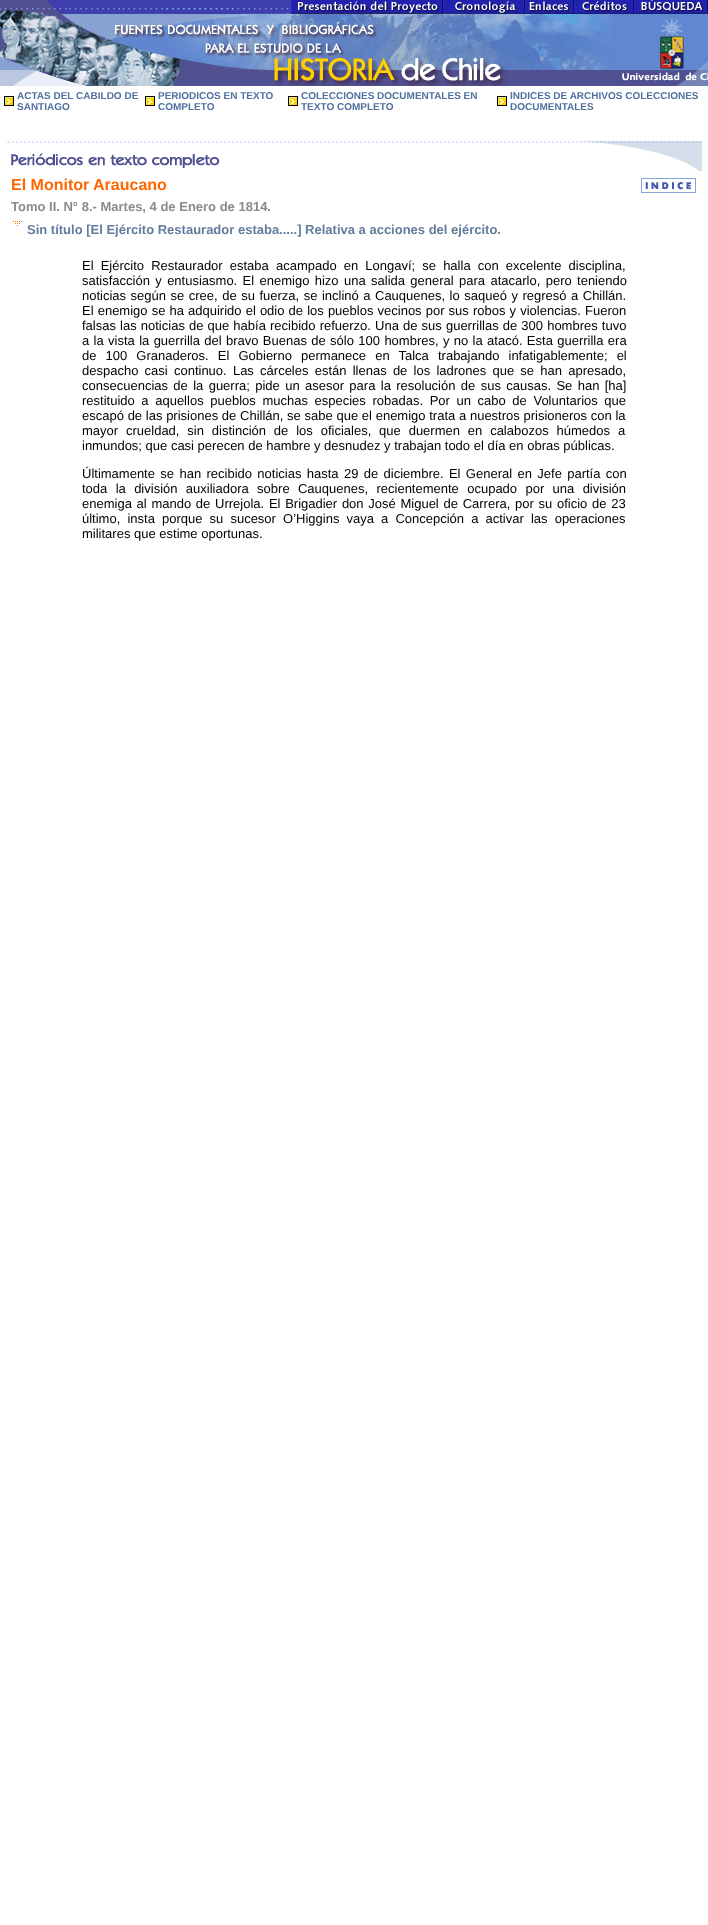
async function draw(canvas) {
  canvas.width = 708;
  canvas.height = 1925;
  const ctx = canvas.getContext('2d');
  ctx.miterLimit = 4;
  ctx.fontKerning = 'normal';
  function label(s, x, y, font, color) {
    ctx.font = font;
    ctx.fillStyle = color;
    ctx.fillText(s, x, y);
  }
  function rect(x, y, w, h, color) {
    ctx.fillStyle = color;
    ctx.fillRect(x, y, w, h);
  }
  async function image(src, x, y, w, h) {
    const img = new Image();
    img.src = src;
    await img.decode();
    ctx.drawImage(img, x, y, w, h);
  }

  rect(0, 0, 708, 1925, '#fff');
  await image('assets/img1.png', 67, 0, 224, 14);
  await image('assets/img2.png', 0, 0, 67, 14);
  await image('assets/img3.png', 291, 0, 151, 14);
  await image('assets/img4.png', 442, 0, 82, 14);
  await image('assets/img5.png', 524, 0, 49, 14);
  await image('assets/img6.png', 573, 0, 60, 14);
  await image('assets/img7.png', 633, 0, 75, 14);
  await image('assets/img8.png', 612, 14, 96, 72);
  await image('assets/img9.png', 0, 14, 612, 72);
  await image('assets/img10.png', 622, 19, 86, 67);
  await image('assets/img11.png', 4, 96, 10, 10);
  label('ACTAS DEL CABILDO DE', 17, 99, 'bold 10px Liberation Sans', '#50709f');
  label('SANTIAGO', 17, 110, 'bold 10px Liberation Sans', '#50709f');
  await image('assets/img11.png', 145, 96, 10, 10);
  label('PERIODICOS EN TEXTO', 158, 99, 'bold 10px Liberation Sans', '#50709f');
  label('COMPLETO', 158, 110, 'bold 10px Liberation Sans', '#50709f');
  await image('assets/img11.png', 288, 96, 10, 10);
  label('COLECCIONES DOCUMENTALES EN', 301, 99, 'bold 10px Liberation Sans', '#50709f');
  label('TEXTO COMPLETO', 301, 110, 'bold 10px Liberation Sans', '#50709f');
  await image('assets/img11.png', 497, 96, 10, 10);
  label('INDICES DE ARCHIVOS COLECCIONES', 510, 99, 'bold 10px Liberation Sans', '#50709f');
  label('DOCUMENTALES', 510, 110, 'bold 10px Liberation Sans', '#50709f');
  await image('assets/img12.png', 220, 141, 358, 2);
  await image('assets/img13.png', 6, 141, 214, 27);
  await image('assets/img14.png', 578, 141, 124, 30);
  label('El Monitor Araucano', 11, 190, 'bold 16px Liberation Sans', '#f60');
  await image('assets/img15.png', 641, 178, 55, 15);
  label('Tomo II. N° 8.- Martes, 4 de Enero de 1814.', 11, 211, 'bold 13px Liberation Sans', '#8b8b8b');
  await image('assets/img16.png', 13, 221, 9, 5);
  label('Sin título [El Ejército Restaurador estaba.....] Relativa a acciones del ejército.', 27, 234, 'bold 13px Liberation Sans', '#627c9d');
  ctx.wordSpacing = '3.5px';
  label('El Ejército Restaurador estaba acampado en Longaví; se halla con excelente disciplina,', 82, 270, '13px Liberation Sans', '#000');
  ctx.wordSpacing = '1.75px';
  label('satisfacción y entusiasmo. El enemigo hizo una salida general para atacarlo, pero teniendo', 82, 285, '13px Liberation Sans', '#000');
  ctx.wordSpacing = '0.9px';
  label('noticias según se cree, de su fuerza, se inclinó a Cauquenes, lo saqueó y regresó a Chillán.', 82, 300, '13px Liberation Sans', '#000');
  ctx.wordSpacing = '0.5px';
  label('El enemigo se ha adquirido el odio de los pueblos vecinos por sus robos y violencias. Fueron', 82, 315, '13px Liberation Sans', '#000');
  label('falsas las noticias de que había recibido refuerzo. Una de sus guerrillas de 300 hombres tuvo', 82, 330, '13px Liberation Sans', '#000');
  ctx.wordSpacing = '0.75px';
  label('a la vista la guerrilla del bravo Buenas de sólo 100 hombres, y no la atacó. Esta guerrilla era', 82, 345, '13px Liberation Sans', '#000');
  ctx.wordSpacing = '5.5px';
  label('de 100 Granaderos. El Gobierno permanece en Talca trabajando infatigablemente; el', 82, 360, '13px Liberation Sans', '#000');
  ctx.wordSpacing = '2.6px';
  label('despacho casi continuo. Las cárceles están llenas de los ladrones que se han apresado,', 82, 375, '13px Liberation Sans', '#000');
  ctx.wordSpacing = '1.75px';
  label('consecuencias de la guerra; pide un asesor para la resolución de sus causas. Se han [ha]', 82, 390, '13px Liberation Sans', '#000');
  ctx.wordSpacing = '3px';
  label('restituido a aquellos pueblos muchas especies robadas. Por un cabo de Voluntarios que', 82, 405, '13px Liberation Sans', '#000');
  ctx.wordSpacing = '0.1px';
  label('escapó de las prisiones de Chillán, se sabe que el enemigo trata a nuestros prisioneros con la', 82, 420, '13px Liberation Sans', '#000');
  ctx.wordSpacing = '4.25px';
  label('mayor crueldad, sin distinción de los oficiales, que duermen en calabozos húmedos a', 82, 435, '13px Liberation Sans', '#000');
  ctx.wordSpacing = '0px';
  label('inmundos; que casi perecen de hambre y desnudez y trabajan todo el día en obras públicas.', 82, 450, '13px Liberation Sans', '#000');
  ctx.wordSpacing = '1.75px';
  label('Últimamente se han recibido noticias hasta 29 de diciembre. El General en Jefe partía con', 82, 478, '13px Liberation Sans', '#000');
  ctx.wordSpacing = '4.75px';
  label('toda la división auxiliadora sobre Cauquenes, recientemente ocupado por una división', 82, 493, '13px Liberation Sans', '#000');
  ctx.wordSpacing = '1.1px';
  label('enemiga al mando de Urrejola. El Brigadier don José Miguel de Carrera, por su oficio de 23', 82, 508, '13px Liberation Sans', '#000');
  ctx.wordSpacing = '3.5px';
  label('último, insta porque su sucesor O’Higgins vaya a Concepción a activar las operaciones', 82, 523, '13px Liberation Sans', '#000');
  ctx.wordSpacing = '0px';
  label('militares que estime oportunas.', 82, 538, '13px Liberation Sans', '#000');
}

draw(document.querySelector('canvas'));
